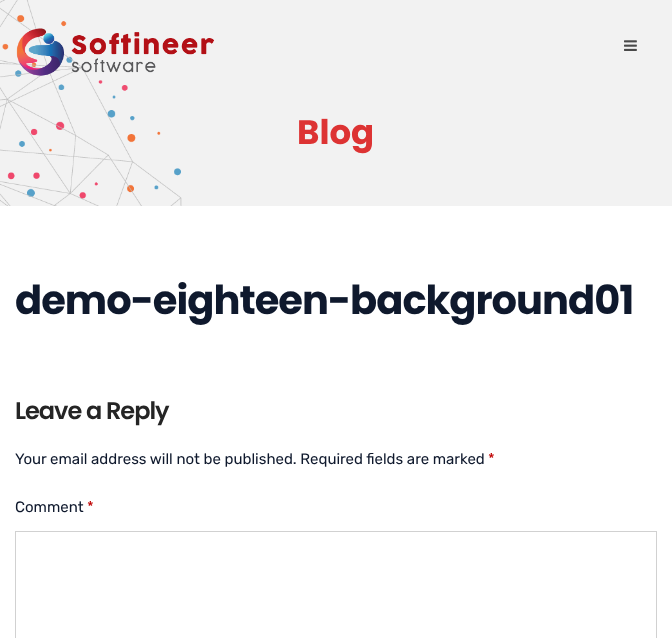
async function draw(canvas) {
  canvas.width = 672;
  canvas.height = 638;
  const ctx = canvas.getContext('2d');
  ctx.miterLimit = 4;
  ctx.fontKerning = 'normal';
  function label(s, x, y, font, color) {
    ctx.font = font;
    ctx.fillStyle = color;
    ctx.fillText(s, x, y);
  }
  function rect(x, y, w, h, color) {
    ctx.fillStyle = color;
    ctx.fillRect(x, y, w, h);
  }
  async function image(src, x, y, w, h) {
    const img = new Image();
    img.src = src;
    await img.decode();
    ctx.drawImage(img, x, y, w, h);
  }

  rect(0, 0, 672, 638, '#fff');
  rect(0, 0, 672, 206, '#f2f2f2');
  await image('assets/img3.png', 0, 0, 182, 206);
  rect(3, 15, 125, 83, '#ffffff08');
  await image('assets/img1.png', 16, 28, 198, 48);
  await image('assets/img2.png', 624, 40, 13, 11);
  label('Blog', 297, 144, 'bold 34px Poppins', '#d33');
  ctx.letterSpacing = '-1px';
  label('demo-eighteen-background01', 15, 314, 'bold 40px Poppins', '#0f192d');
  label('Leave a Reply', 15, 419, '600 24px Poppins', '#252525');
  ctx.letterSpacing = '0px';
  label('Your email address will not be published. Required fields are marked', 15, 464, '15px Rubik', '#0f192d');
  label('*', 488, 464, '15px Rubik', '#bf0000');
  label('Comment', 15, 512, '15px Rubik', '#0f192d');
  label('*', 87, 512, '15px Rubik', '#bf0000');
  ctx.strokeStyle = '#d1d1d1';
  ctx.strokeRect(15.5, 531.5, 641, 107);
}

draw(document.querySelector('canvas'));
